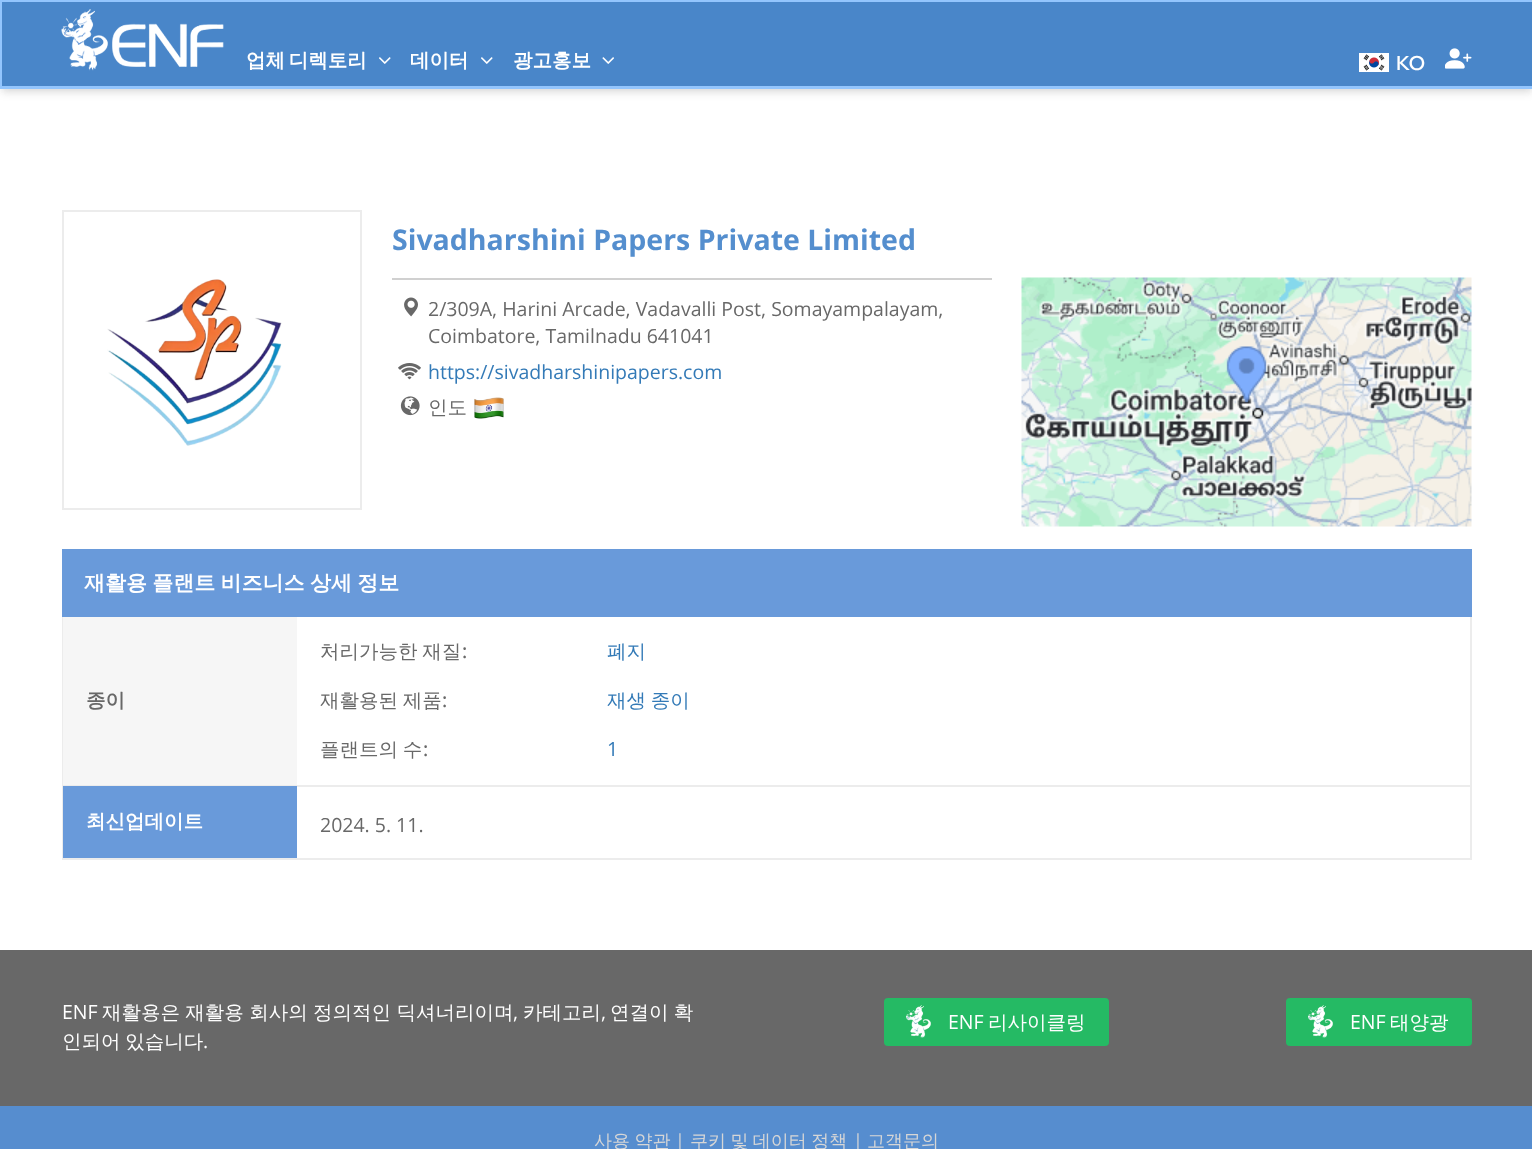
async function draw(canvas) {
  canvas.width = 1532;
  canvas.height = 1149;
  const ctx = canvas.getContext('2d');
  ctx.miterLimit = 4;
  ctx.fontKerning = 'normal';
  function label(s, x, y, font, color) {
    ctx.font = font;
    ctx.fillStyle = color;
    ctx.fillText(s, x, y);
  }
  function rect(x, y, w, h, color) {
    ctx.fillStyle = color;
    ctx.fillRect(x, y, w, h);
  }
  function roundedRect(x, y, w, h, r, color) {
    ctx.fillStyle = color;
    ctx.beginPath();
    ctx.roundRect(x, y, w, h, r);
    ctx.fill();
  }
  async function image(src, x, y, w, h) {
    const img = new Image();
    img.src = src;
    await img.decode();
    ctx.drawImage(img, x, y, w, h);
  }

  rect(0, 0, 1532, 1149, '#fff');
  ctx.fillStyle = '#0000000f';
  ctx.filter = 'blur(3px)';
  ctx.beginPath();
  ctx.rect(2, 5, 1530, 85);
  ctx.fill();
  ctx.filter = 'none';
  ctx.fillStyle = '#0000001a';
  ctx.filter = 'blur(4.5px)';
  ctx.beginPath();
  ctx.rect(2, 8, 1530, 85);
  ctx.fill();
  ctx.filter = 'none';
  rect(2, 2, 1530, 84, '#4986c9');
  rect(0, 0, 1532, 2, '#93c5fd');
  rect(0, 86, 1532, 3, '#93c5fd');
  rect(0, 0, 2, 89, '#93c5fd');
  await image('assets/img1.png', 61, 9, 163, 62);
  ctx.wordSpacing = '-2px';
  label('업체 디렉토리', 246, 67, 'bold 19.5px WenQuanYi Zen Hei', '#fff');
  await image('assets/img2.png', 379, 57, 12, 7);
  ctx.wordSpacing = '0px';
  label('데이터', 410, 67, 'bold 19.5px WenQuanYi Zen Hei', '#fff');
  await image('assets/img2.png', 481, 57, 12, 7);
  label('광고홍보', 513, 67, 'bold 19.5px WenQuanYi Zen Hei', '#fff');
  await image('assets/img3.png', 602, 57, 12, 7);
  await image('assets/img4.png', 1359, 53, 30, 19);
  label('KO', 1396, 70, '600 19.5px Wix Madefor Display', '#fff');
  await image('assets/img5.png', 1445, 48, 27, 21);
  ctx.strokeStyle = '#ececec';
  ctx.lineWidth = 2;
  ctx.strokeRect(63, 211, 298, 298);
  await image('assets/img6.png', 107, 279, 175, 167);
  label('Sivadharshini Papers Private Limited', 392, 250, 'bold 28.5px Open Sans', '#548ece');
  rect(392, 278, 600, 2, '#d0d0d0');
  await image('assets/img7.png', 404, 297, 14, 20);
  label('2/309A, Harini Arcade, Vadavalli Post, Somayampalayam,', 428, 316, '19.5px Open Sans', '#686868');
  label('Coimbatore, Tamilnadu 641041', 428, 343, '19.5px Open Sans', '#686868');
  await image('assets/img8.png', 398, 363, 23, 17);
  label('https://sivadharshinipapers.com', 428, 379, '19.5px Open Sans', '#337ab7');
  await image('assets/img9.png', 400, 396, 20, 20);
  label('인도', 428, 414, '500 19.5px WenQuanYi Zen Hei', '#686868');
  await image('assets/img10.png', 474, 397, 30, 22);
  await image('assets/img11.png', 1021, 277, 451, 250);
  rect(62, 785, 1410, 2, '#ececec');
  rect(62, 549, 1410, 68, '#699ada');
  ctx.wordSpacing = '-1px';
  label('재활용 플랜트 비즈니스 상세 정보', 84, 590, 'bold 21px WenQuanYi Zen Hei', '#fff');
  rect(1470, 617, 2, 168, '#ececec');
  rect(62, 617, 1, 168, '#ececec');
  rect(63, 617, 234, 168, '#f6f6f6');
  ctx.wordSpacing = '0px';
  label('종이', 86, 707, 'bold 19.5px WenQuanYi Zen Hei', '#686868');
  ctx.wordSpacing = '-1px';
  label('처리가능한 재질', 320, 658, '500 19.5px WenQuanYi Zen Hei', '#686868');
  ctx.wordSpacing = '0px';
  label(':', 462, 658, '500 19.5px Open Sans', '#686868');
  label('폐지', 607, 658, '500 19.5px WenQuanYi Zen Hei', '#337ab7');
  ctx.wordSpacing = '-1px';
  label('재활용된 제품', 320, 707, '500 19.5px WenQuanYi Zen Hei', '#686868');
  ctx.wordSpacing = '0px';
  label(':', 442, 707, '500 19.5px Open Sans', '#686868');
  ctx.wordSpacing = '-1px';
  label('재생 종이', 607, 707, '500 19.5px WenQuanYi Zen Hei', '#337ab7');
  label('플랜트의 수', 320, 756, '500 19.5px WenQuanYi Zen Hei', '#686868');
  ctx.wordSpacing = '0px';
  label(':', 423, 756, '500 19.5px Open Sans', '#686868');
  label('1', 607, 756, '19.5px Open Sans', '#337ab7');
  rect(62, 858, 1410, 2, '#ececec');
  rect(1470, 786, 2, 72, '#ececec');
  rect(62, 786, 1, 72, '#ececec');
  rect(63, 786, 234, 72, '#699ada');
  label('최신업데이트', 86, 828, 'bold 19.5px WenQuanYi Zen Hei', '#fff');
  label('2024. 5. 11.', 320, 832, '19.5px Open Sans', '#686868');
  rect(0, 950, 1532, 156, '#686868');
  label('ENF', 62, 1019, '19.5px Open Sans', '#fff');
  ctx.wordSpacing = '-0.5px';
  label('재활용은 재활용 회사의 정의적인 딕셔너리이며', 102, 1019, '500 19.5px WenQuanYi Zen Hei', '#fff');
  ctx.wordSpacing = '0px';
  label(',', 513, 1019, '19.5px Open Sans', '#fff');
  label('카테고리', 523, 1019, '500 19.5px WenQuanYi Zen Hei', '#fff');
  label(',', 601, 1019, '19.5px Open Sans', '#fff');
  ctx.wordSpacing = '-0.5px';
  label('연결이 확', 610, 1019, '500 19.5px WenQuanYi Zen Hei', '#fff');
  ctx.wordSpacing = '-1px';
  label('인되어 있습니다', 62, 1048, '500 19.5px WenQuanYi Zen Hei', '#fff');
  ctx.wordSpacing = '0px';
  label('.', 203, 1048, '19.5px Open Sans', '#fff');
  roundedRect(884, 998, 225, 48, 4, '#25ba64');
  await image('assets/img12.png', 906, 1005, 25, 33);
  label('ENF', 948, 1029, '19.5px Open Sans', '#fff');
  label('리사이클링', 988, 1029, '500 19.5px WenQuanYi Zen Hei', '#fff');
  roundedRect(1286, 998, 186, 48, 4, '#25ba64');
  await image('assets/img12.png', 1308, 1005, 25, 33);
  label('ENF', 1350, 1029, '19.5px Open Sans', '#fff');
  label('태양광', 1390, 1029, '500 19.5px WenQuanYi Zen Hei', '#fff');
  rect(0, 1106, 1532, 43, '#568dcf');
  ctx.wordSpacing = '-1px';
  label('사용 약관', 594, 1147, '500 18px WenQuanYi Zen Hei', '#d6d6d6');
  ctx.wordSpacing = '0px';
  label('|', 675, 1147, '18px Open Sans', '#d6d6d6');
  ctx.wordSpacing = '-1px';
  label('쿠키 및 데이터 정책', 690, 1147, '500 18px WenQuanYi Zen Hei', '#d6d6d6');
  ctx.wordSpacing = '0px';
  label('|', 853, 1147, '18px Open Sans', '#d6d6d6');
  label('고객문의', 867, 1147, '500 18px WenQuanYi Zen Hei', '#d6d6d6');
}

draw(document.querySelector('canvas'));
